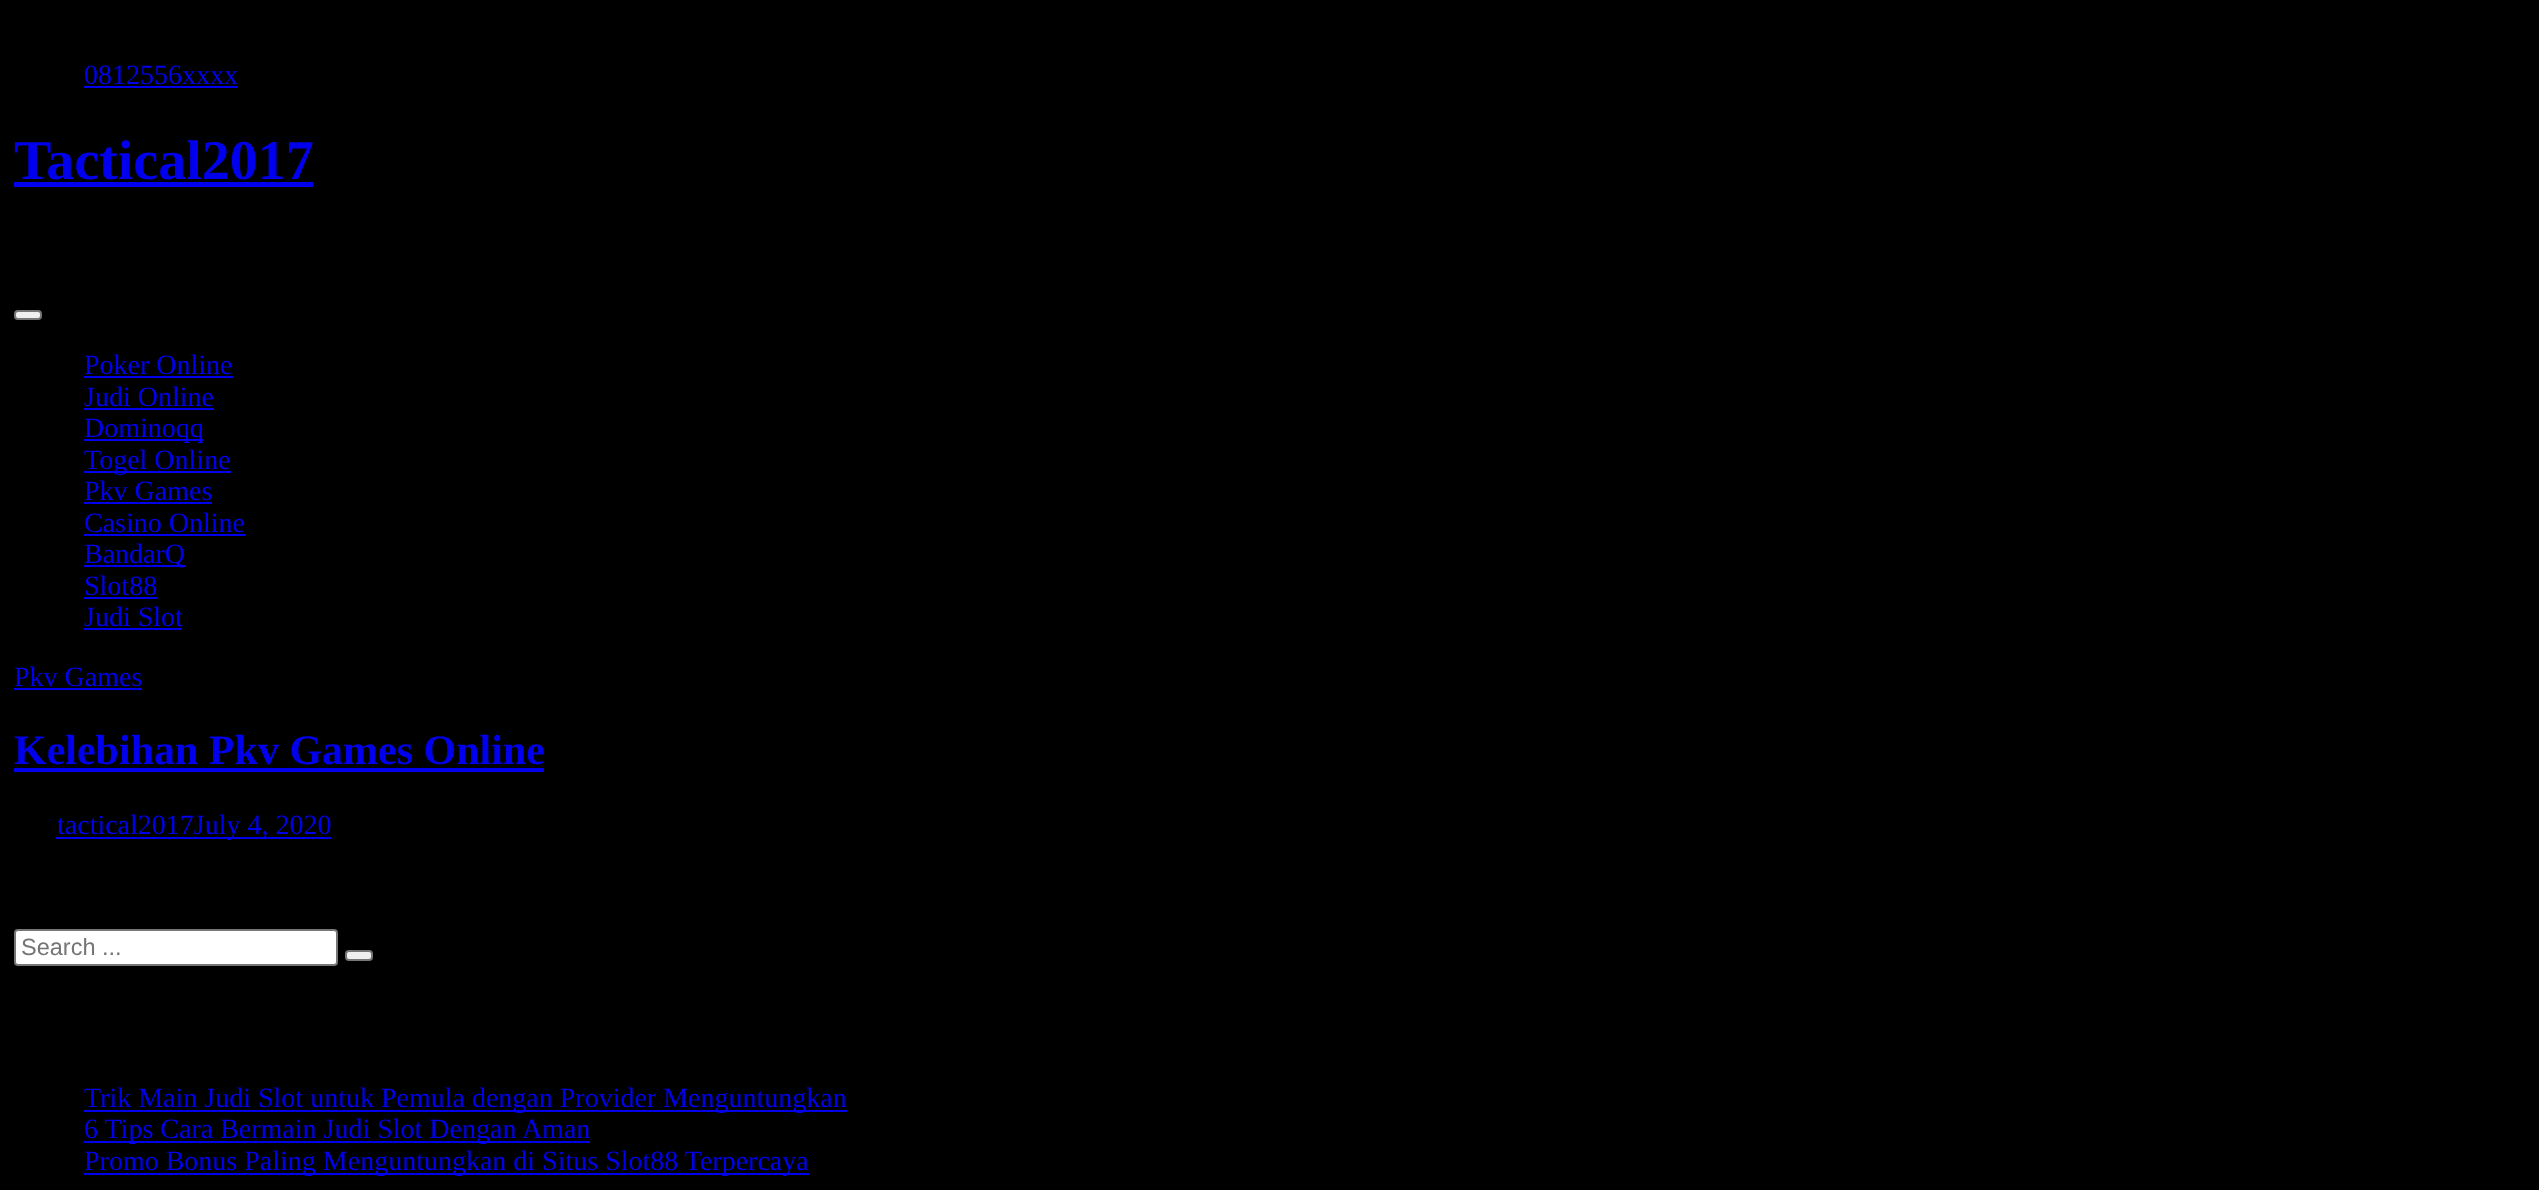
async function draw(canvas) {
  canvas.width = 2539;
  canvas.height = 1190;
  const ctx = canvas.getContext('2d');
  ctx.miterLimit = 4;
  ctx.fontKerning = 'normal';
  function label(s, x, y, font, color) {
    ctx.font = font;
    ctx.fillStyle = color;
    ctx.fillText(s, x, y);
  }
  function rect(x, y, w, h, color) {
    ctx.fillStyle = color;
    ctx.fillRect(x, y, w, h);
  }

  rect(0, 0, 2539, 1190, '#000');
  label('0812556xxxx', 84, 84, '28px Liberation Serif', '#00e');
  rect(84, 86, 154, 2, '#00e');
  label('Tactical2017', 14, 179, 'bold 56px Liberation Serif', '#00e');
  rect(14, 182, 299, 5, '#00e');
  ctx.fillStyle = '#efefef';
  ctx.beginPath();
  ctx.roundRect(15, 311, 26, 8, 3);
  ctx.fill();
  ctx.strokeStyle = '#767676';
  ctx.lineWidth = 2;
  ctx.stroke();
  label('Poker Online', 84, 374, '28px Liberation Serif', '#00e');
  rect(84, 376, 149, 2, '#00e');
  label('Judi Online', 84, 406, '28px Liberation Serif', '#00e');
  rect(84, 408, 130, 2, '#00e');
  rect(84, 439, 119, 2, '#00e');
  label('Dominoqq', 84, 437, '28px Liberation Serif', '#00e');
  rect(84, 471, 147, 2, '#00e');
  label('Togel Online', 84, 469, '28px Liberation Serif', '#00e');
  label('Pkv Games', 84, 500, '28px Liberation Serif', '#00e');
  rect(84, 502, 128, 2, '#00e');
  label('Casino Online', 84, 532, '28px Liberation Serif', '#00e');
  rect(84, 534, 161, 2, '#00e');
  rect(84, 565, 102, 2, '#00e');
  label('BandarQ', 84, 563, '28px Liberation Serif', '#00e');
  label('Slot88', 84, 595, '28px Liberation Serif', '#00e');
  rect(84, 597, 74, 2, '#00e');
  label('Judi Slot', 84, 626, '28px Liberation Serif', '#00e');
  rect(84, 628, 98, 2, '#00e');
  label('Pkv Games', 14, 686, '28px Liberation Serif', '#00e');
  rect(14, 688, 128, 2, '#00e');
  label('Kelebihan Pkv Games Online', 14, 764, 'bold 42px Liberation Serif', '#00e');
  rect(14, 768, 530, 4, '#00e');
  rect(56, 837, 275, 2, '#00e');
  label('tactical2017July 4, 2020', 57, 834, '28px Liberation Serif', '#00e');
  ctx.fillStyle = '#fff';
  ctx.beginPath();
  ctx.roundRect(15, 930, 322, 35, 3);
  ctx.fill();
  ctx.stroke();
  label('Search ...', 21, 955, '23.5px Liberation Sans', '#757575');
  ctx.fillStyle = '#efefef';
  ctx.beginPath();
  ctx.roundRect(346, 951, 26, 9, 3);
  ctx.fill();
  ctx.stroke();
  rect(84, 1110, 763, 2, '#00e');
  label('Trik Main Judi Slot untuk Pemula dengan Provider Menguntungkan', 84, 1107, '28px Liberation Serif', '#00e');
  rect(84, 1141, 506, 2, '#00e');
  label('6 Tips Cara Bermain Judi Slot Dengan Aman', 84, 1138, '28px Liberation Serif', '#00e');
  rect(84, 1173, 725, 2, '#00e');
  label('Promo Bonus Paling Menguntungkan di Situs Slot88 Terpercaya', 84, 1170, '28px Liberation Serif', '#00e');
}

draw(document.querySelector('canvas'));
